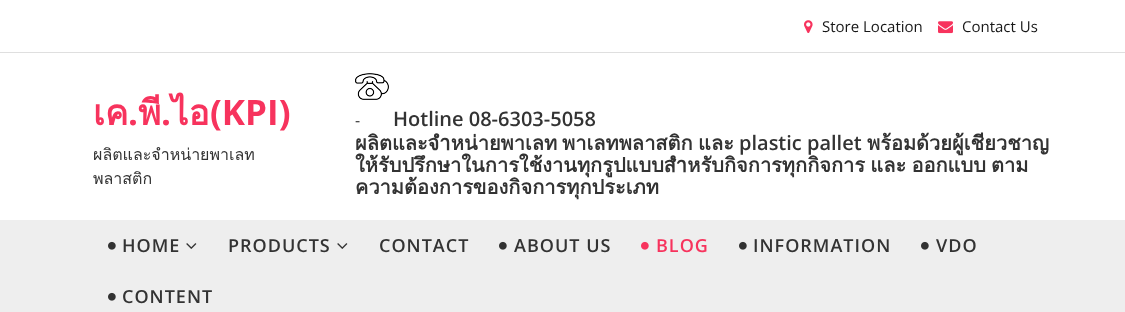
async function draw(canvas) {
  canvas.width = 1125;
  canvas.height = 312;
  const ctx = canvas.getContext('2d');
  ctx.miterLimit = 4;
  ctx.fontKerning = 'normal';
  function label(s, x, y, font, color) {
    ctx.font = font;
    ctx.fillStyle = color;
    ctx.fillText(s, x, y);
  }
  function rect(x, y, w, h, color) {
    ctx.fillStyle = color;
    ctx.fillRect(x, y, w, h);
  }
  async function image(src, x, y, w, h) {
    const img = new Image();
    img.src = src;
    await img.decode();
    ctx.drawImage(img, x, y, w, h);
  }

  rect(0, 0, 1125, 312, '#fff');
  rect(0, 52, 1125, 1, '#dfdfdf');
  await image('assets/img1.png', 804, 20, 9, 13);
  label('Store Location', 822, 32, '15px Open Sans', '#171717');
  await image('assets/img2.png', 938, 21, 15, 13);
  label('Contact Us', 962, 32, '15px Open Sans', '#171717');
  label('เค', 93, 125, 'bold 35px Loma', '#f7335d');
  label('.', 128, 125, 'bold 35px Open Sans', '#f7335d');
  label('พี', 138, 125, 'bold 35px Loma', '#f7335d');
  label('.', 161, 125, 'bold 35px Open Sans', '#f7335d');
  label('ไอ', 171, 125, 'bold 35px Loma', '#f7335d');
  label('(KPI)', 210, 125, 'bold 35px Open Sans', '#f7335d');
  label('ผลิตและจำหน่ายพาเลท', 93, 160, '16px Loma', '#333');
  label('พลาสติก', 93, 184, '16px Loma', '#333');
  await image('assets/img3.png', 355, 73, 34, 27);
  label('-', 355, 126, '16px Open Sans', '#333');
  label('Hotline 08-6303-5058', 393, 126, '600 20px Open Sans', '#333');
  label('ผลิตและจำหน่ายพาเลท', 355, 150, 'bold 20px Loma', '#333');
  label('พาเลทพลาสติก', 562, 150, 'bold 20px Loma', '#333');
  label('และ', 698, 150, 'bold 20px Loma', '#333');
  label('plastic pallet', 739, 150, '600 20px Open Sans', '#333');
  label('พร้อมด้วยผู้เชียวชาญ', 867, 150, 'bold 20px Loma', '#333');
  ctx.wordSpacing = '-1.5px';
  label('ให้รับปรึกษาในการใช้งานทุกรูปแบบสำหรับกิจการทุกกิจการ และ ออกแบบ ตาม', 355, 172, 'bold 20px Loma', '#333');
  ctx.wordSpacing = '0px';
  label('ความต้องการของกิจการทุกประเภท', 355, 194, 'bold 20px Loma', '#333');
  rect(0, 220, 1125, 92, '#eee');
  await image('assets/img4.png', 108, 241, 8, 9);
  ctx.letterSpacing = '1px';
  label('HOME', 122, 252, '600 18px Open Sans', '#333');
  await image('assets/img5.png', 186, 243, 11, 6);
  label('PRODUCTS', 228, 252, '600 18px Open Sans', '#333');
  await image('assets/img5.png', 337, 243, 11, 6);
  label('CONTACT', 379, 252, '600 18px Open Sans', '#333');
  await image('assets/img4.png', 499, 241, 8, 9);
  label('ABOUT US', 514, 252, '600 18px Open Sans', '#333');
  await image('assets/img6.png', 641, 241, 8, 9);
  label('BLOG', 656, 252, '600 18px Open Sans', '#f7335d');
  await image('assets/img4.png', 739, 241, 8, 9);
  label('INFORMATION', 753, 252, '600 18px Open Sans', '#333');
  await image('assets/img4.png', 921, 241, 8, 9);
  label('VDO', 936, 252, '600 18px Open Sans', '#333');
  await image('assets/img4.png', 108, 292, 8, 9);
  label('CONTENT', 122, 303, '600 18px Open Sans', '#333');
}

draw(document.querySelector('canvas'));
